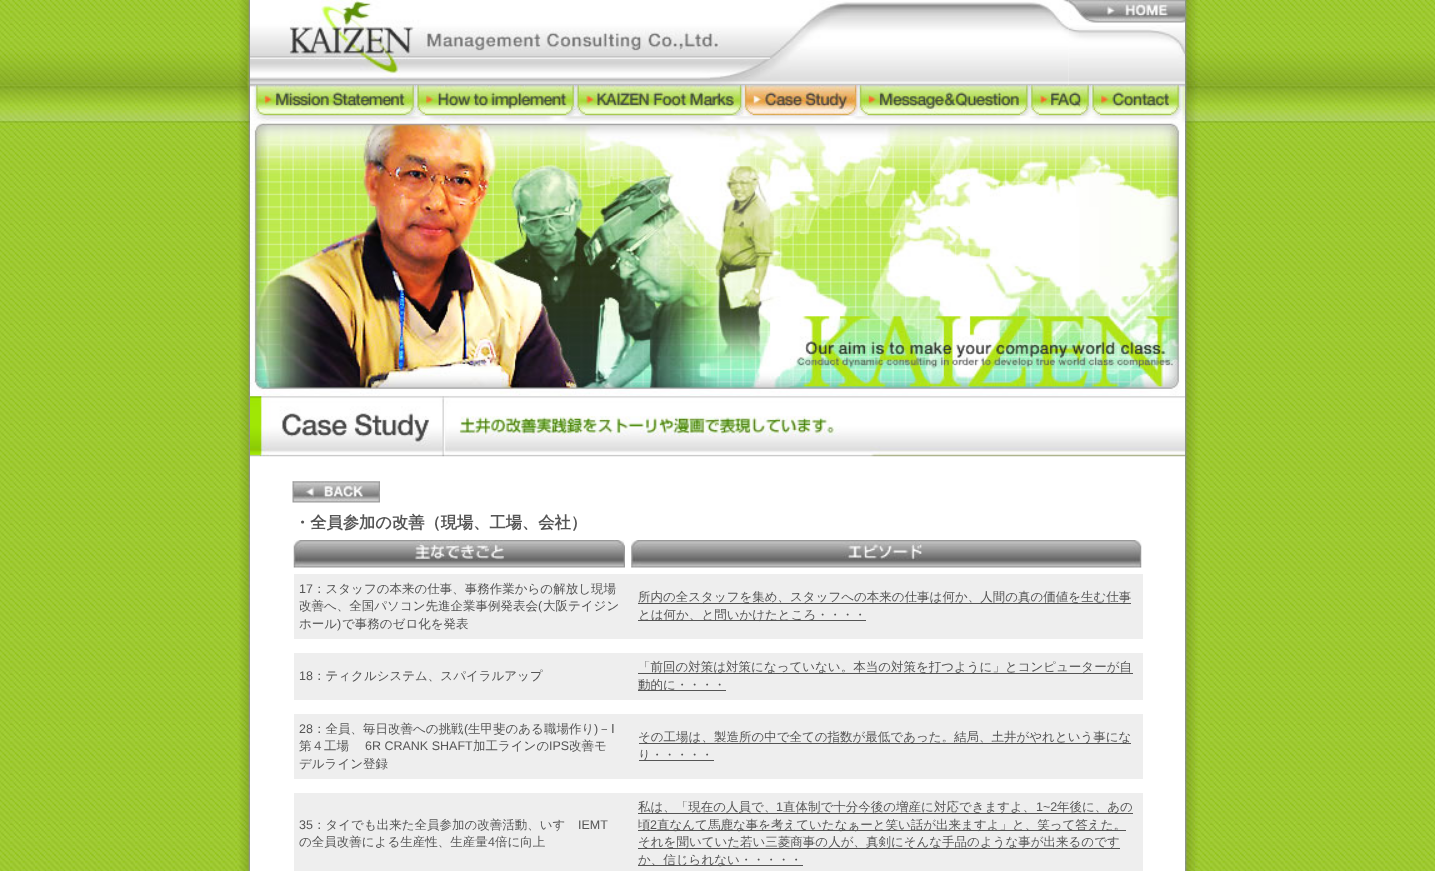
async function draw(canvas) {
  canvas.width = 1435;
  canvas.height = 871;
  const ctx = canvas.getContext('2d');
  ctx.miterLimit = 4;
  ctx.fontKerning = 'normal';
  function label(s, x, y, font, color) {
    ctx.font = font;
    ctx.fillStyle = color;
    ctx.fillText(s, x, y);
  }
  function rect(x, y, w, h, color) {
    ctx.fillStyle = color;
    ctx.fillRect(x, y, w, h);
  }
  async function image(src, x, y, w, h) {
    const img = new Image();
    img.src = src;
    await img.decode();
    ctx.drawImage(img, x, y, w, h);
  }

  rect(0, 0, 1435, 871, '#fff');
  await image('assets/img1.png', 0, 0, 1435, 871);
  await image('assets/img2.png', 237, 0, 13, 871);
  rect(250, 0, 935, 871, '#fff');
  await image('assets/img3.png', 250, 0, 819, 85);
  await image('assets/img4.png', 1068, 0, 117, 23);
  await image('assets/img5.png', 1068, 25, 117, 60);
  await image('assets/img6.png', 250, 85, 167, 32);
  await image('assets/img7.png', 416, 85, 159, 32);
  await image('assets/img8.png', 575, 85, 169, 32);
  await image('assets/img9.png', 743, 85, 116, 32);
  await image('assets/img10.png', 858, 85, 172, 32);
  await image('assets/img11.png', 1030, 85, 62, 32);
  await image('assets/img12.png', 1091, 85, 94, 32);
  await image('assets/img13.png', 250, 116, 935, 281);
  await image('assets/img14.png', 250, 396, 935, 61);
  await image('assets/img15.png', 292, 481, 88, 22);
  label('・全員参加の改善（現場、工場、会社）', 294, 528, 'bold 16.25px WenQuanYi Zen Hei', '#555');
  await image('assets/img16.png', 293, 540, 332, 28);
  await image('assets/img17.png', 631, 540, 511, 28);
  rect(294, 574, 849, 65, '#eee');
  label('17', 299, 593, '12.5px Liberation Sans', '#555');
  label('：スタッフの本来の仕事、事務作業からの解放し現場', 313, 593, '500 12.5px WenQuanYi Zen Hei', '#555');
  label('改善へ、全国パソコン先進企業事例発表会', 299, 610, '500 12.5px WenQuanYi Zen Hei', '#555');
  label('(', 538, 610, '12.5px Liberation Sans', '#555');
  label('大阪テイジン', 543, 610, '500 12.5px WenQuanYi Zen Hei', '#555');
  label('ホール', 299, 628, '500 12.5px WenQuanYi Zen Hei', '#555');
  label(')', 337, 628, '12.5px Liberation Sans', '#555');
  label('で事務のゼロ化を発表', 342, 628, '500 12.5px WenQuanYi Zen Hei', '#555');
  label('所内の全スタッフを集め、スタッフへの本来の仕事は何か、人間の真の価値を生む仕事', 638, 601, '500 12.5px WenQuanYi Zen Hei', '#555');
  rect(638, 603, 493, 1, '#555');
  rect(638, 620, 228, 1, '#555');
  label('とは何か、と問いかけたところ・・・・', 638, 619, '500 12.5px WenQuanYi Zen Hei', '#555');
  rect(294, 653, 849, 47, '#eee');
  label('18', 299, 680, '12.5px Liberation Sans', '#555');
  label('：ティクルシステム、スパイラルアップ', 313, 680, '500 12.5px WenQuanYi Zen Hei', '#555');
  rect(638, 673, 495, 1, '#555');
  label('「前回の対策は対策になっていない。本当の対策を打つように」とコンピューターが自', 638, 671, '500 12.5px WenQuanYi Zen Hei', '#555');
  rect(638, 690, 88, 1, '#555');
  label('動的に・・・・', 638, 689, '500 12.5px WenQuanYi Zen Hei', '#555');
  rect(294, 714, 849, 65, '#eee');
  label('28', 299, 733, '12.5px Liberation Sans', '#555');
  label('：全員、毎日改善への挑戦', 313, 733, '500 12.5px WenQuanYi Zen Hei', '#555');
  label('(', 464, 733, '12.5px Liberation Sans', '#555');
  label('生甲斐のある職場作り', 468, 733, '500 12.5px WenQuanYi Zen Hei', '#555');
  label(')', 594, 733, '12.5px Liberation Sans', '#555');
  label('－', 598, 733, '500 12.5px WenQuanYi Zen Hei', '#555');
  label('Ⅰ', 611, 733, '12.5px DejaVu Sans', '#555');
  label('第４工場', 299, 750, '500 12.5px WenQuanYi Zen Hei', '#555');
  label('6R CRANK SHAFT', 365, 750, '12.5px Liberation Sans', '#555');
  label('加工ラインの', 473, 750, '500 12.5px WenQuanYi Zen Hei', '#555');
  label('IPS', 549, 750, '12.5px Liberation Sans', '#555');
  label('改善モ', 569, 750, '500 12.5px WenQuanYi Zen Hei', '#555');
  label('デルライン登録', 299, 768, '500 12.5px WenQuanYi Zen Hei', '#555');
  rect(639, 743, 492, 1, '#555');
  label('その工場は、製造所の中で全ての指数が最低であった。結局、土井がやれという事にな', 638, 741, '500 12.5px WenQuanYi Zen Hei', '#555');
  rect(639, 760, 75, 1, '#555');
  label('り・・・・・', 638, 759, '500 12.5px WenQuanYi Zen Hei', '#555');
  rect(294, 793, 849, 78, '#eee');
  label('35', 299, 829, '12.5px Liberation Sans', '#555');
  label('：タイでも出来た全員参加の改善活動、いすゞ', 313, 829, '500 12.5px WenQuanYi Zen Hei', '#555');
  label('IEMT', 578, 829, '12.5px Liberation Sans', '#555');
  label('の全員改善による生産性、生産量', 299, 846, '500 12.5px WenQuanYi Zen Hei', '#555');
  label('4', 488, 846, '12.5px Liberation Sans', '#555');
  label('倍に向上', 495, 846, '500 12.5px WenQuanYi Zen Hei', '#555');
  label('私は、「現在の人員で、', 638, 811, '500 12.5px WenQuanYi Zen Hei', '#555');
  label('1', 776, 811, '12.5px Liberation Sans', '#555');
  rect(638, 813, 495, 1, '#555');
  label('直体制で十分今後の増産に対応できますよ、', 783, 811, '500 12.5px WenQuanYi Zen Hei', '#555');
  label('1~2', 1036, 811, '12.5px Liberation Sans', '#555');
  label('年後に、あの', 1057, 811, '500 12.5px WenQuanYi Zen Hei', '#555');
  rect(638, 830, 488, 1, '#555');
  label('頃', 638, 829, '500 12.5px WenQuanYi Zen Hei', '#555');
  label('2', 650, 829, '12.5px Liberation Sans', '#555');
  label('直なんて馬鹿な事を考えていたなぁーと笑い話が出来ますよ」と、笑って答えた。', 657, 829, '500 12.5px WenQuanYi Zen Hei', '#555');
  rect(638, 848, 482, 1, '#555');
  label('それを聞いていた若い三菱商事の人が、真剣にそんな手品のような事が出来るのです', 638, 846, '500 12.5px WenQuanYi Zen Hei', '#555');
  rect(638, 865, 165, 1, '#555');
  label('か、信じられない・・・・・', 638, 864, '500 12.5px WenQuanYi Zen Hei', '#555');
  await image('assets/img18.png', 1185, 0, 13, 871);
}

draw(document.querySelector('canvas'));
